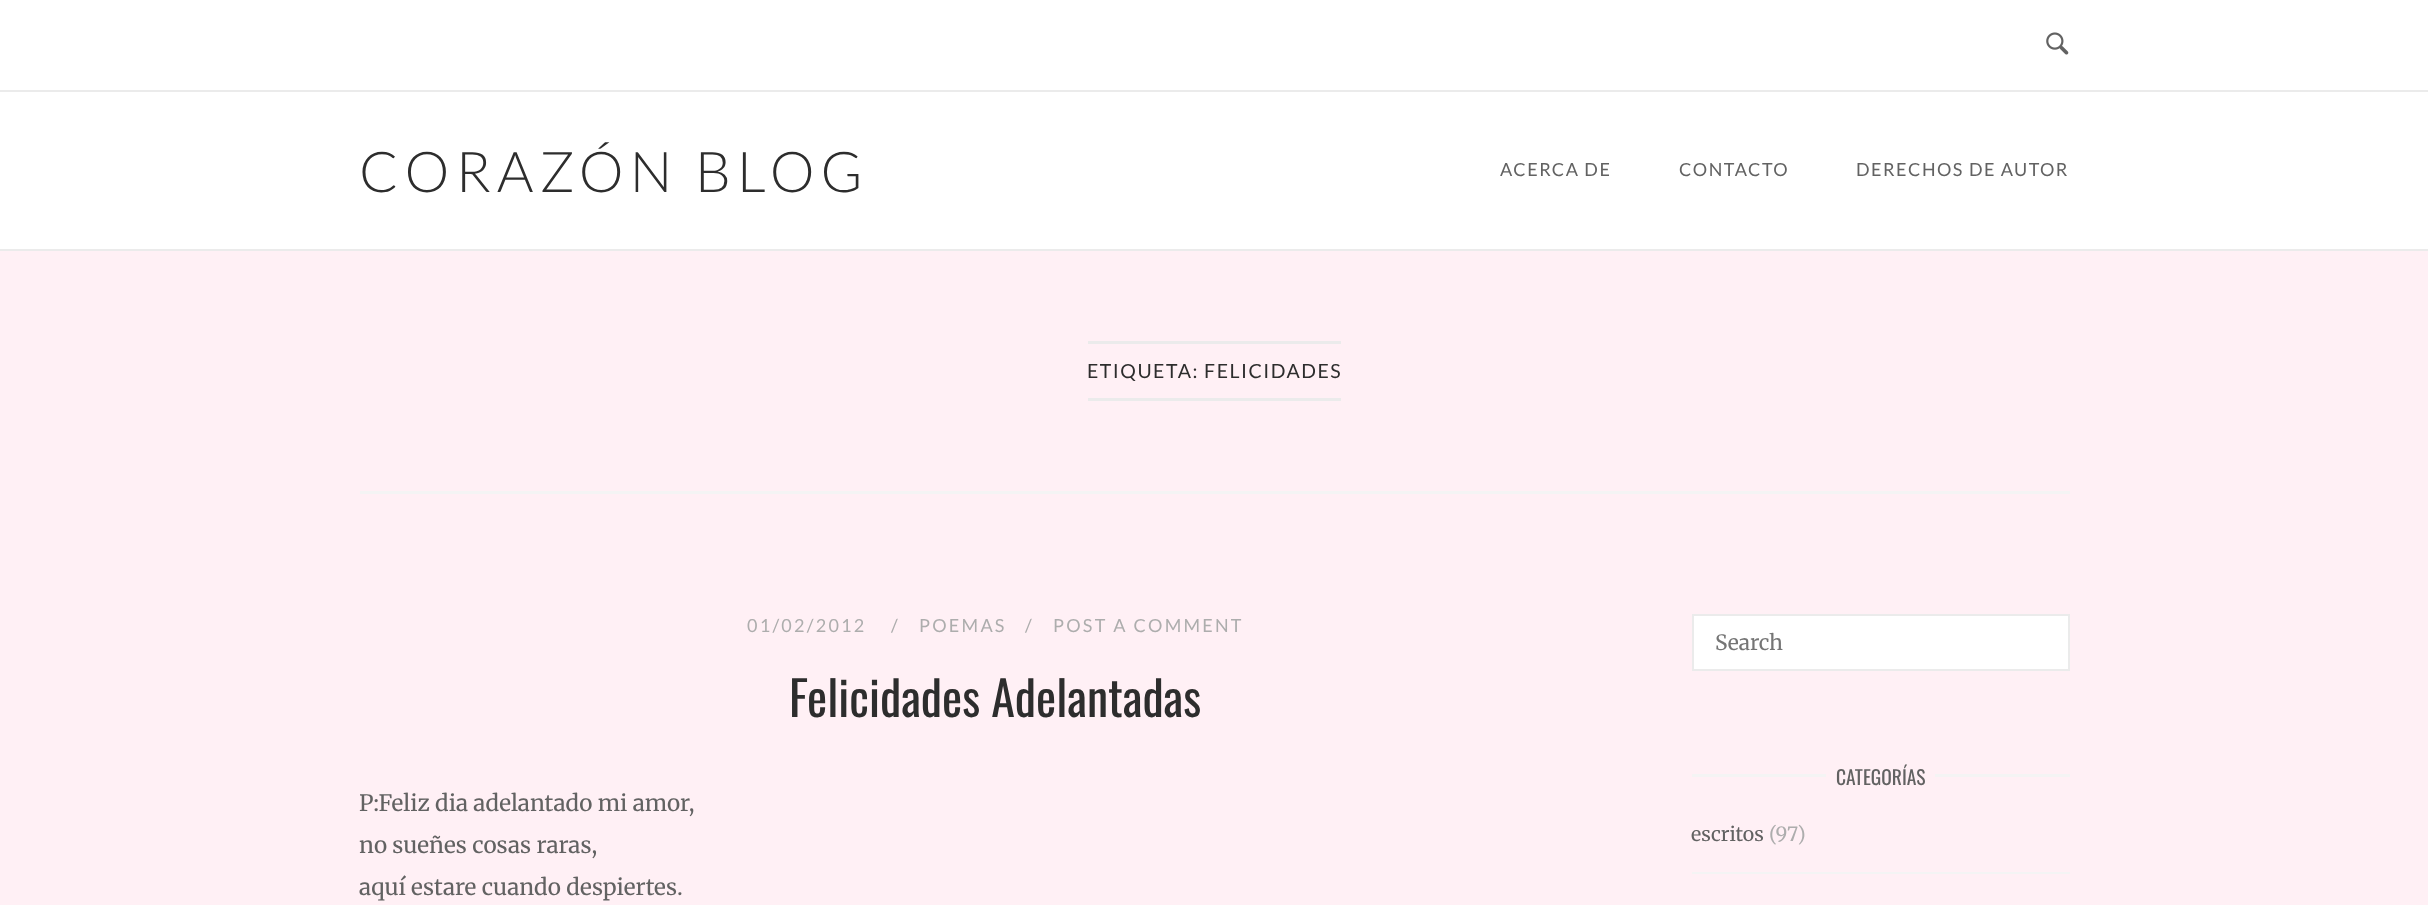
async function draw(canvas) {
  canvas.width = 2428;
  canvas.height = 905;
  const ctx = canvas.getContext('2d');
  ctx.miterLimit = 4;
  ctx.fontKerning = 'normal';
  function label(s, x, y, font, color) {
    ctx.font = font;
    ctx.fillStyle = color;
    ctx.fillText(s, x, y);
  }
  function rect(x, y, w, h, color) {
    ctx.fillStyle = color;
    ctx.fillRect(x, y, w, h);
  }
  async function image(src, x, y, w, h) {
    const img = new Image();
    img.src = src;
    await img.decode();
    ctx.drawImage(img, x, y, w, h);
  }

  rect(0, 0, 2428, 905, '#fff0f5');
  rect(0, 249, 2428, 2, '#ebebeb');
  rect(0, 0, 2428, 90, '#fff');
  rect(0, 90, 2428, 2, '#ebebeb');
  await image('assets/img1.png', 2046, 32, 23, 23);
  rect(0, 92, 2428, 157, '#fff');
  ctx.letterSpacing = '6px';
  label('CORAZÓN BLOG', 359, 192, '300 56.25px Lato', '#2d2d2d');
  ctx.letterSpacing = '1.5px';
  label('ACERCA DE', 1500, 176, '18px Lato', '#626262');
  label('CONTACTO', 1679, 176, '18px Lato', '#626262');
  label('DERECHOS DE AUTOR', 1856, 176, '18px Lato', '#626262');
  rect(360, 491, 1710, 3, '#f4f4f4');
  rect(1088, 341, 253, 3, '#ebebeb');
  rect(1088, 398, 253, 3, '#ebebeb');
  label('ETIQUETA: FELICIDADES', 1087, 378, '19.5px Lato', '#2d2d2d');
  ctx.letterSpacing = '2.25px';
  label('01/02/2012', 747, 632, '18px Lato', '#adadad');
  label('/', 891, 632, '18px Lato', '#adadad');
  label('POEMAS', 919, 632, '18px Lato', '#adadad');
  label('/', 1025, 632, '18px Lato', '#adadad');
  label('POST A COMMENT', 1053, 632, '18px Lato', '#adadad');
  ctx.letterSpacing = '0px';
  label('Felicidades Adelantadas', 789, 717, '48px Oswald', '#2d2d2d');
  label('P:Feliz dia adelantado mi amor,', 359, 811, '22.5px Merriweather', '#626262');
  label('no sueñes cosas raras,', 359, 853, '22.5px Merriweather', '#626262');
  label('aquí estare cuando despiertes.', 359, 895, '22.5px Merriweather', '#626262');
  ctx.fillStyle = '#fff';
  ctx.beginPath();
  ctx.rect(1693, 615, 376, 55);
  ctx.fill();
  ctx.strokeStyle = '#ebebeb';
  ctx.lineWidth = 2;
  ctx.stroke();
  label('Search', 1715, 650, '21px Merriweather', '#757575');
  rect(1692, 774, 134, 3, '#f4f4f4');
  label('CATEGORÍAS', 1836, 785, '19.5px Oswald', '#626262');
  rect(1935, 774, 135, 3, '#f4f4f4');
  rect(1692, 872, 378, 2, '#f4f4f4');
  label('escritos', 1691, 841, '19.5px Merriweather', '#626262');
  label('(97)', 1769, 841, '19.5px Merriweather', '#adadad');
}

draw(document.querySelector('canvas'));
